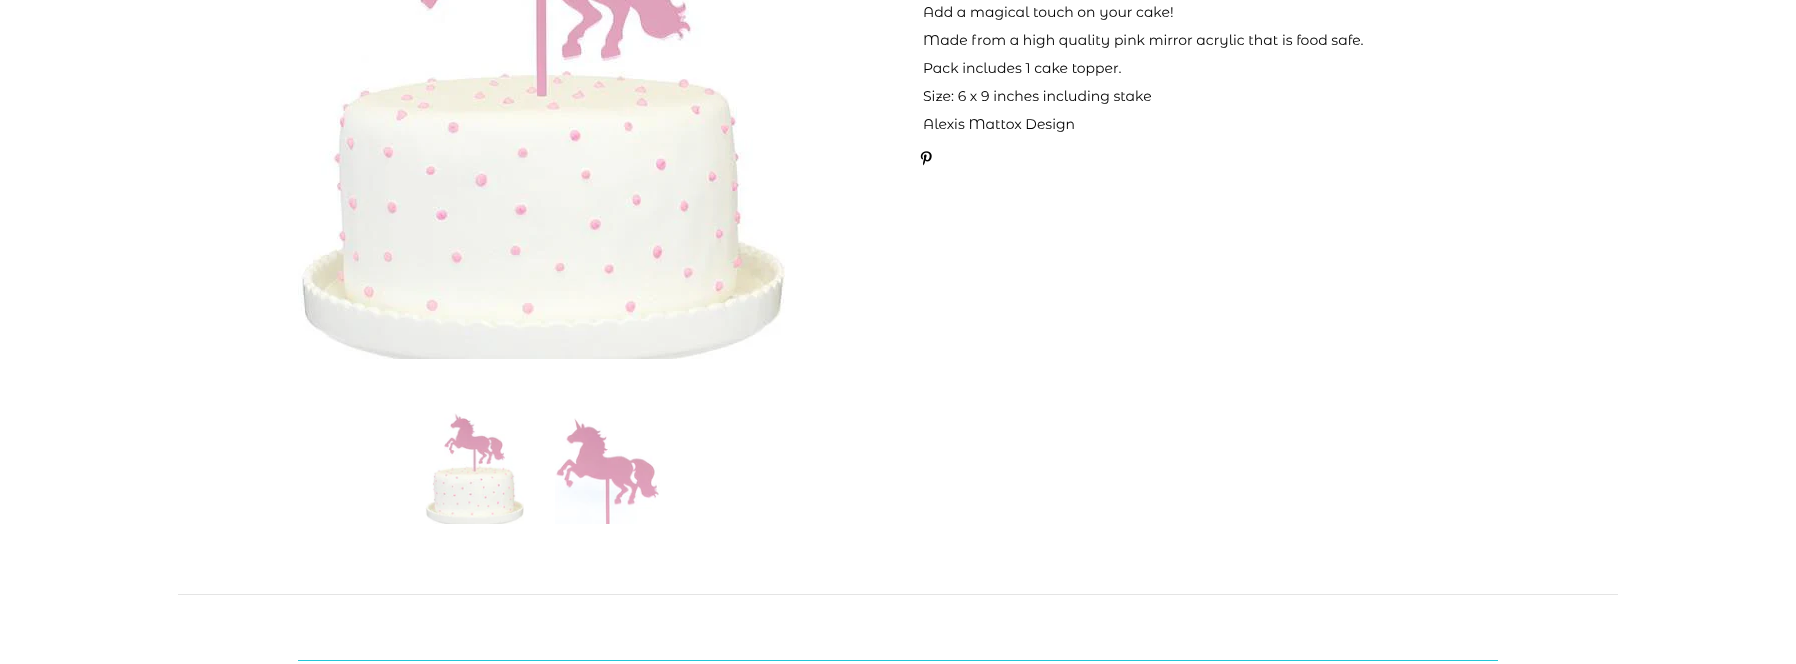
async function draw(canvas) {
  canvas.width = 1796;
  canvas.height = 664;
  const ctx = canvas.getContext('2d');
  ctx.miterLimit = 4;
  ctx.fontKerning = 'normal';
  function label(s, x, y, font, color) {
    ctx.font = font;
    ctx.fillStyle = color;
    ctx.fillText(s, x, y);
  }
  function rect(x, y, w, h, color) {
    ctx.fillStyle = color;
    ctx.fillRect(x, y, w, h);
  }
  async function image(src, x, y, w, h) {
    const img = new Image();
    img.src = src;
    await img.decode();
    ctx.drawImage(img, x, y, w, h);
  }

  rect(0, 0, 1796, 664, '#fff');
  await image('assets/img1.png', 298, 0, 487, 359);
  await image('assets/img2.png', 425, 413, 99, 111);
  await image('assets/img3.png', 555, 418, 105, 106);
  label('Add a magical touch on your cake!', 923, 17, '14px Montserrat Alternates', '#000');
  label('Made from a high quality pink mirror acrylic that is food safe.', 923, 45, '14px Montserrat Alternates', '#000');
  label('Pack includes 1 cake topper.', 923, 73, '14px Montserrat Alternates', '#000');
  label('Size: 6 x 9 inches including stake', 923, 101, '14px Montserrat Alternates', '#000');
  label('Alexis Mattox Design', 923, 129, '14px Montserrat Alternates', '#000');
  await image('assets/img4.png', 920, 151, 12, 15);
  rect(178, 594, 1440, 1, '#e4e4e4');
  rect(298, 660, 1200, 1, '#22c6d9');
}

draw(document.querySelector('canvas'));
